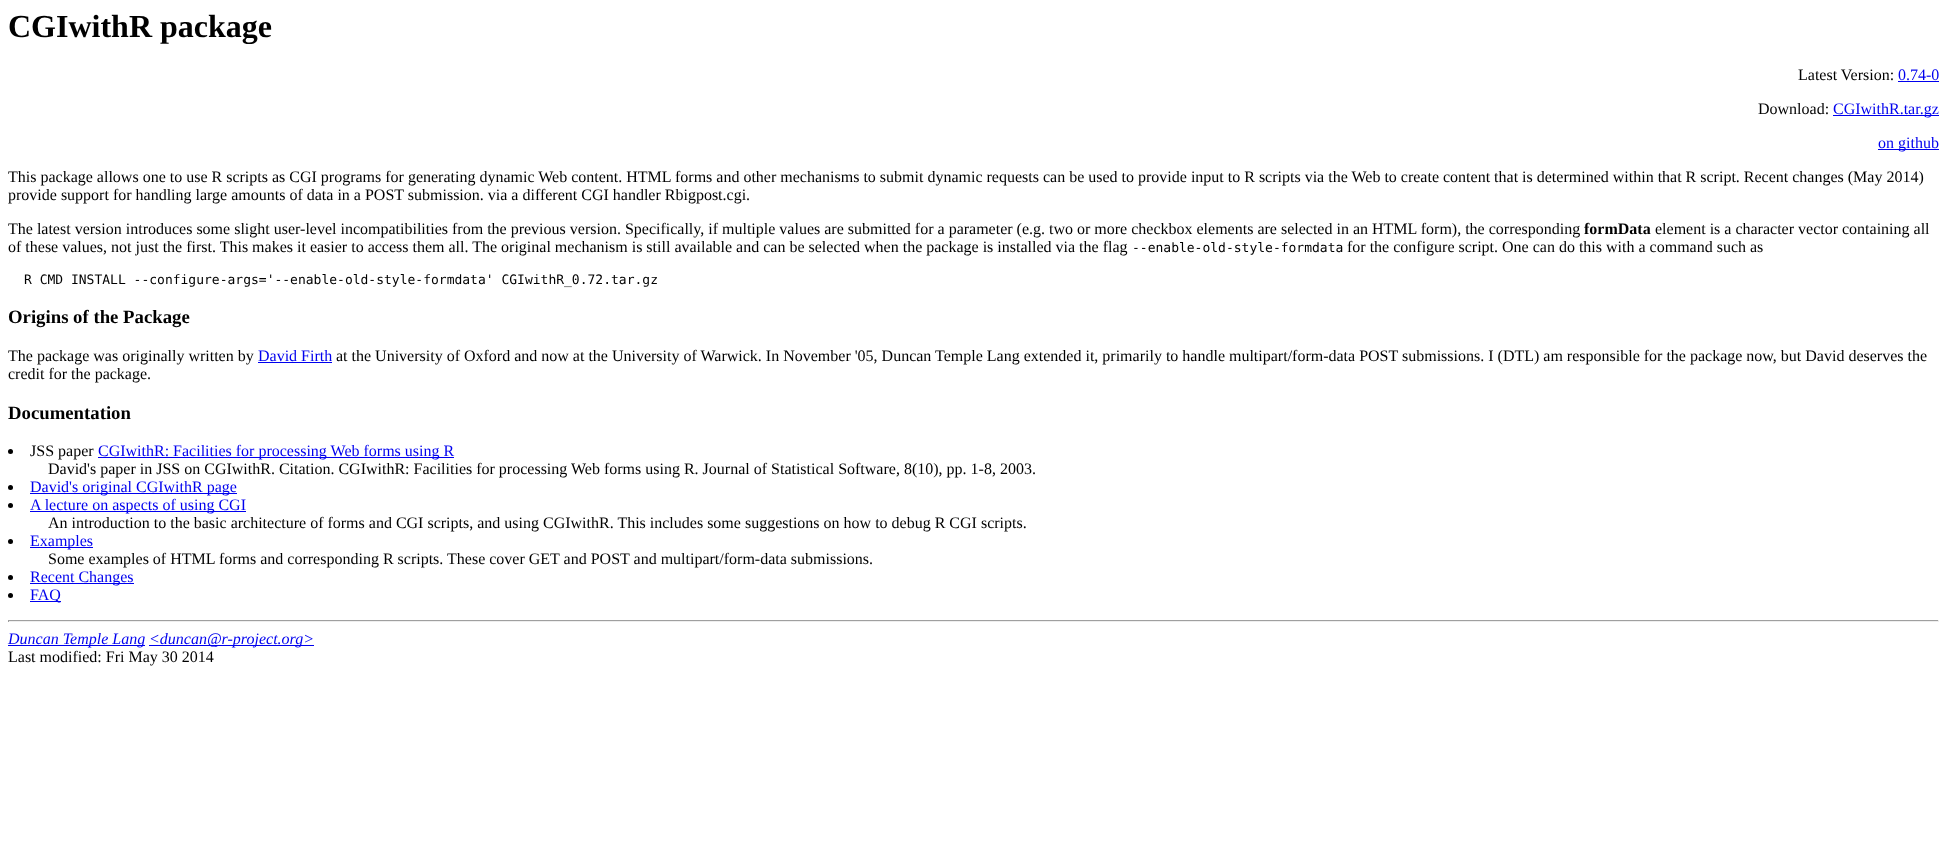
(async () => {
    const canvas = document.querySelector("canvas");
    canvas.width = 1947;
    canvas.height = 866;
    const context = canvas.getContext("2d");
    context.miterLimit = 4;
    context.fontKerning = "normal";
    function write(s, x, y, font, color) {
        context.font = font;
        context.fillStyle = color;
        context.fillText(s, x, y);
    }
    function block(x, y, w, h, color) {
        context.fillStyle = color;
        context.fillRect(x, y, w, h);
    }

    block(0, 0, 1947, 866, "rgb(255, 255, 255)");
    write("CGIwithR package", 8, 37, "bold 32px Liberation Serif", "rgb(0, 0, 0)");
    write("Latest Version:", 1798, 80, "16px Liberation Serif", "rgb(0, 0, 0)");
    write("0.74-0", 1898, 80, "16px Liberation Serif", "rgb(0, 0, 238)");
    block(1898, 81, 41, 1, "rgb(0, 0, 238)");
    write("Download:", 1758, 114, "16px Liberation Serif", "rgb(0, 0, 0)");
    block(1833, 115, 106, 1, "rgb(0, 0, 238)");
    write("CGIwithR.tar.gz", 1833, 114, "16px Liberation Serif", "rgb(0, 0, 238)");
    block(1878, 149, 61, 1, "rgb(0, 0, 238)");
    write("on github", 1878, 148, "16px Liberation Serif", "rgb(0, 0, 238)");
    write("This package allows one to use R scripts as CGI programs for generating dynamic Web content. HTML forms and other mechanisms to submit dynamic requests can be used to provide input to R scripts via the Web to create content that is determined within that R script. Recent changes (May 2014)", 8, 182, "16px Liberation Serif", "rgb(0, 0, 0)");
    write("provide support for handling large amounts of data in a POST submission. via a different CGI handler Rbigpost.cgi.", 8, 200, "16px Liberation Serif", "rgb(0, 0, 0)");
    write("The latest version introduces some slight user-level incompatibilities from the previous version. Specifically, if multiple values are submitted for a parameter (e.g. two or more checkbox elements are selected in an HTML form), the corresponding", 8, 234, "16px Liberation Serif", "rgb(0, 0, 0)");
    write("formData", 1584, 234, "bold 16px Liberation Serif", "rgb(0, 0, 0)");
    write("element is a character vector containing all", 1655, 234, "16px Liberation Serif", "rgb(0, 0, 0)");
    write("of these values, not just the first. This makes it easier to access them all. The original mechanism is still available and can be selected when the package is installed via the flag", 8, 252, "16px Liberation Serif", "rgb(0, 0, 0)");
    write("--enable-old-style-formdata", 1132, 252, "13px DejaVu Sans Mono", "rgb(0, 0, 0)");
    write("for the configure script. One can do this with a command such as", 1347, 252, "16px Liberation Serif", "rgb(0, 0, 0)");
    write("R CMD INSTALL --configure-args='--enable-old-style-formdata' CGIwithR_0.72.tar.gz", 24, 284, "13px DejaVu Sans Mono", "rgb(0, 0, 0)");
    write("Origins of the Package", 8, 323, "bold 18.75px Liberation Serif", "rgb(0, 0, 0)");
    write("The package was originally written by", 8, 361, "16px Liberation Serif", "rgb(0, 0, 0)");
    write("David Firth", 258, 361, "16px Liberation Serif", "rgb(0, 0, 238)");
    block(258, 362, 74, 1, "rgb(0, 0, 238)");
    write("at the University of Oxford and now at the University of Warwick. In November '05, Duncan Temple Lang extended it, primarily to handle multipart/form-data POST submissions. I (DTL) am responsible for the package now, but David deserves the", 336, 361, "16px Liberation Serif", "rgb(0, 0, 0)");
    write("credit for the package.", 8, 379, "16px Liberation Serif", "rgb(0, 0, 0)");
    write("Documentation", 8, 419, "bold 18.75px Liberation Serif", "rgb(0, 0, 0)");
    context.beginPath();
    context.arc(10.5, 451.5, 2.5, 0, Math.PI * 2);
    context.fill();
    write("JSS paper", 30, 456, "16px Liberation Serif", "rgb(0, 0, 0)");
    block(98, 457, 356, 1, "rgb(0, 0, 238)");
    write("CGIwithR: Facilities for processing Web forms using R", 98, 456, "16px Liberation Serif", "rgb(0, 0, 238)");
    write("David's paper in JSS on CGIwithR. Citation. CGIwithR: Facilities for processing Web forms using R. Journal of Statistical Software, 8(10), pp. 1-8, 2003.", 48, 474, "16px Liberation Serif", "rgb(0, 0, 0)");
    context.beginPath();
    context.arc(10.5, 487.5, 2.5, 0, Math.PI * 2);
    context.fill();
    block(30, 493, 207, 1, "rgb(0, 0, 238)");
    write("David's original CGIwithR page", 30, 492, "16px Liberation Serif", "rgb(0, 0, 238)");
    context.fillStyle = "rgb(0, 0, 0)";
    context.beginPath();
    context.arc(10.5, 505.5, 2.5, 0, Math.PI * 2);
    context.fill();
    block(30, 511, 216, 1, "rgb(0, 0, 238)");
    write("A lecture on aspects of using CGI", 30, 510, "16px Liberation Serif", "rgb(0, 0, 238)");
    write("An introduction to the basic architecture of forms and CGI scripts, and using CGIwithR. This includes some suggestions on how to debug R CGI scripts.", 48, 528, "16px Liberation Serif", "rgb(0, 0, 0)");
    context.beginPath();
    context.arc(10.5, 541.5, 2.5, 0, Math.PI * 2);
    context.fill();
    block(30, 547, 63, 1, "rgb(0, 0, 238)");
    write("Examples", 30, 546, "16px Liberation Serif", "rgb(0, 0, 238)");
    write("Some examples of HTML forms and corresponding R scripts. These cover GET and POST and multipart/form-data submissions.", 48, 564, "16px Liberation Serif", "rgb(0, 0, 0)");
    context.beginPath();
    context.arc(10.5, 577.5, 2.5, 0, Math.PI * 2);
    context.fill();
    block(30, 583, 104, 1, "rgb(0, 0, 238)");
    write("Recent Changes", 30, 582, "16px Liberation Serif", "rgb(0, 0, 238)");
    context.fillStyle = "rgb(0, 0, 0)";
    context.beginPath();
    context.arc(10.5, 595.5, 2.5, 0, Math.PI * 2);
    context.fill();
    block(30, 601, 31, 1, "rgb(0, 0, 238)");
    write("FAQ", 30, 600, "16px Liberation Serif", "rgb(0, 0, 238)");
    block(8, 620, 1931, 1, "rgb(159, 159, 159)");
    block(1938, 620, 1, 2, "rgb(238, 238, 238)");
    block(8, 621, 1931, 1, "rgb(238, 238, 238)");
    block(8, 620, 1, 2, "rgb(159, 159, 159)");
    block(8, 645, 137, 1, "rgb(0, 0, 238)");
    write("Duncan Temple Lang", 8, 644, "italic 16px Liberation Serif", "rgb(0, 0, 238)");
    block(149, 645, 165, 1, "rgb(0, 0, 238)");
    write("<duncan@r-project.org>", 149, 644, "italic 16px Liberation Serif", "rgb(0, 0, 238)");
    write("Last modified: Fri May 30 2014", 8, 662, "16px Liberation Serif", "rgb(0, 0, 0)");
})();
